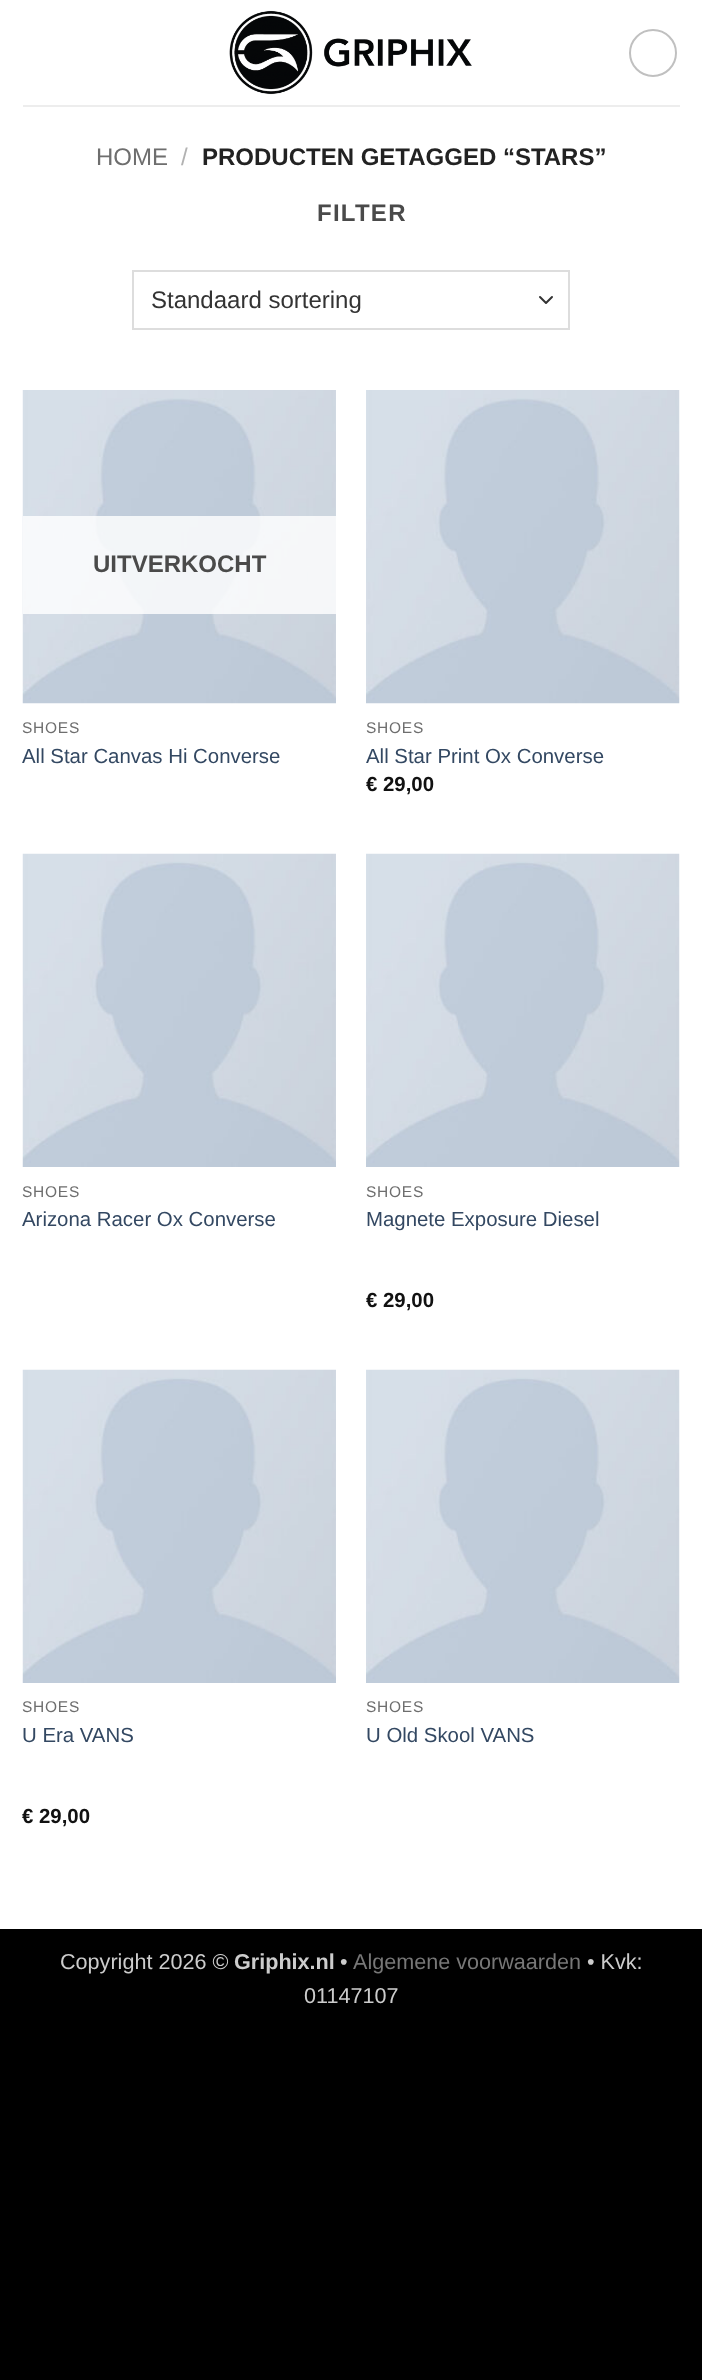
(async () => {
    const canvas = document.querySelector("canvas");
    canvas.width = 702;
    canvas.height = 2380;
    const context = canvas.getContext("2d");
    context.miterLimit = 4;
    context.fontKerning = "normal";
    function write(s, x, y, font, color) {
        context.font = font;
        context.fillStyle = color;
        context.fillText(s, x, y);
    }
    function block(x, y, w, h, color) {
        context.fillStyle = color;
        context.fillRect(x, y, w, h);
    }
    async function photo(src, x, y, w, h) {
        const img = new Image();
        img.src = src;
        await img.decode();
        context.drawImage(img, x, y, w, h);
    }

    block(0, 0, 702, 2380, "rgb(0, 0, 0)");
    block(0, 0, 702, 1929, "rgb(255, 255, 255)");
    await photo("media/1.png", 229, 10, 243, 85);
    context.beginPath();
    context.arc(653, 53, 23, 0, Math.PI * 2);
    context.strokeStyle = "rgb(192, 192, 192)";
    context.lineWidth = 2;
    context.stroke();
    block(23, 105, 657, 2, "rgb(237, 237, 237)");
    write("HOME", 96, 165, "24px Liberation Sans", "rgb(110, 110, 110)");
    write("/", 181, 165, "24px Liberation Sans", "rgb(178, 178, 178)");
    write("PRODUCTEN GETAGGED “STARS”", 202, 165, "bold 24px Liberation Sans", "rgb(34, 34, 34)");
    context.letterSpacing = "1.25px";
    write("FILTER", 317, 221, "bold 24px Liberation Sans", "rgb(74, 74, 74)");
    context.beginPath();
    context.moveTo(540, 297);
    context.lineTo(546, 303);
    context.lineTo(552, 297);
    context.strokeStyle = "rgb(51, 51, 51)";
    context.lineCap = "round";
    context.lineJoin = "round";
    context.stroke();
    context.strokeStyle = "rgb(221, 221, 221)";
    context.lineJoin = "miter";
    context.strokeRect(133, 271, 436, 58);
    context.letterSpacing = "0px";
    write("Standaard sortering", 151, 308, "24px Liberation Sans", "rgb(51, 51, 51)");
    await photo("media/2.png", 22, 390, 314, 314);
    block(23, 516, 313, 98, "rgba(255, 255, 255, 0.81)");
    write("UITVERKOCHT", 93, 572, "bold 24px Liberation Sans", "rgb(74, 74, 74)");
    context.letterSpacing = "0.75px";
    write("SHOES", 22, 733, "15.5px Liberation Sans", "rgb(110, 110, 110)");
    context.letterSpacing = "0px";
    write("All Star Canvas Hi Converse", 22, 763, "20.4px Liberation Sans", "rgb(51, 72, 98)");
    await photo("media/3.png", 366, 390, 314, 314);
    context.letterSpacing = "0.75px";
    write("SHOES", 366, 733, "15.5px Liberation Sans", "rgb(110, 110, 110)");
    context.letterSpacing = "0px";
    write("All Star Print Ox Converse", 366, 763, "20.4px Liberation Sans", "rgb(51, 72, 98)");
    write("€ 29,00", 366, 791, "bold 20.4px Liberation Sans", "rgb(17, 17, 17)");
    await photo("media/4.png", 22, 853, 314, 314);
    context.letterSpacing = "0.75px";
    write("SHOES", 22, 1197, "15.5px Liberation Sans", "rgb(110, 110, 110)");
    context.letterSpacing = "0px";
    write("Arizona Racer Ox Converse", 22, 1226, "20.4px Liberation Sans", "rgb(51, 72, 98)");
    await photo("media/5.png", 366, 853, 314, 314);
    context.letterSpacing = "0.75px";
    write("SHOES", 366, 1197, "15.5px Liberation Sans", "rgb(110, 110, 110)");
    context.letterSpacing = "0px";
    write("Magnete Exposure Diesel", 366, 1226, "20.4px Liberation Sans", "rgb(51, 72, 98)");
    write("€ 29,00", 366, 1307, "bold 20.4px Liberation Sans", "rgb(17, 17, 17)");
    await photo("media/4.png", 22, 1369, 314, 314);
    context.letterSpacing = "0.75px";
    write("SHOES", 22, 1712, "15.5px Liberation Sans", "rgb(110, 110, 110)");
    context.letterSpacing = "0px";
    write("U Era VANS", 22, 1742, "20.4px Liberation Sans", "rgb(51, 72, 98)");
    write("€ 29,00", 22, 1823, "bold 20.4px Liberation Sans", "rgb(17, 17, 17)");
    await photo("media/5.png", 366, 1369, 314, 314);
    context.letterSpacing = "0.75px";
    write("SHOES", 366, 1712, "15.5px Liberation Sans", "rgb(110, 110, 110)");
    context.letterSpacing = "0px";
    write("U Old Skool VANS", 366, 1742, "20.4px Liberation Sans", "rgb(51, 72, 98)");
    write("Copyright 2026 ©", 60, 1969, "21.6px Liberation Sans", "rgb(204, 204, 204)");
    write("Griphix.nl", 234, 1969, "bold 21.6px Liberation Sans", "rgb(204, 204, 204)");
    write("•", 340, 1969, "21.6px Liberation Sans", "rgb(204, 204, 204)");
    write("Algemene voorwaarden", 353, 1969, "21.6px Liberation Sans", "rgb(119, 119, 119)");
    write("• Kvk:", 587, 1969, "21.6px Liberation Sans", "rgb(204, 204, 204)");
    write("01147107", 304, 2003, "21.6px Liberation Sans", "rgb(204, 204, 204)");
})();
